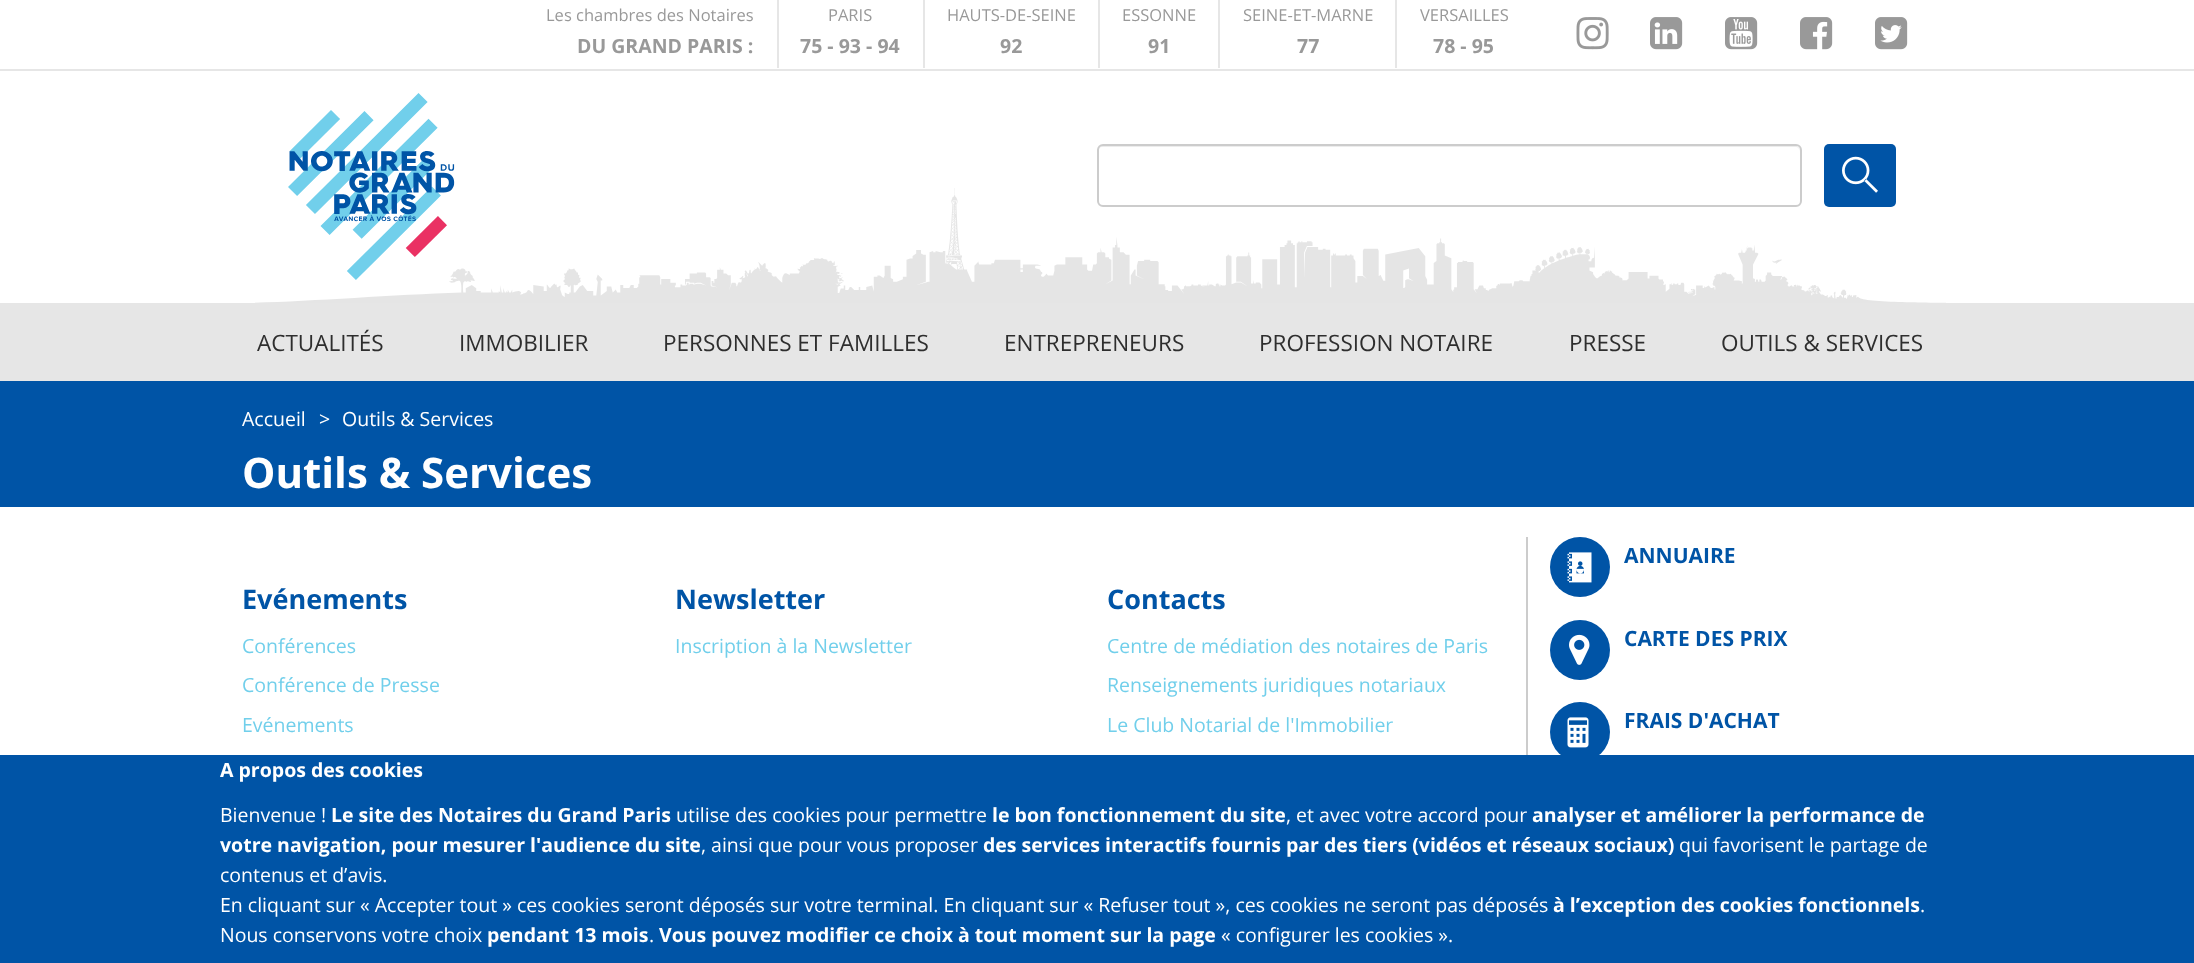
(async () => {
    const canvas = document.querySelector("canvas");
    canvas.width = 2194;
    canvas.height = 963;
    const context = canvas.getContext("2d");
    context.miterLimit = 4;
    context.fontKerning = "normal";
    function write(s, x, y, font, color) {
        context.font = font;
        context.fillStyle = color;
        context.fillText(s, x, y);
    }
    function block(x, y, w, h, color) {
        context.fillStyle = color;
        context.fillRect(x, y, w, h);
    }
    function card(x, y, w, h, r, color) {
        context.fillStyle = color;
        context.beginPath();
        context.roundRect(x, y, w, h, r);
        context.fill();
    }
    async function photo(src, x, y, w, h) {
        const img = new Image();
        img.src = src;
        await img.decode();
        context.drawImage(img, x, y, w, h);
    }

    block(0, 0, 2194, 963, "rgb(255, 255, 255)");
    block(0, 69, 2194, 2, "rgb(230, 230, 230)");
    write("Les chambres des Notaires", 546, 21, "16.5px Open Sans", "rgb(153, 153, 153)");
    write("DU GRAND PARIS :", 577, 53, "bold 19.5px Open Sans", "rgb(153, 153, 153)");
    block(777, 0, 2, 68, "rgb(230, 230, 230)");
    write("PARIS", 828, 21, "16.5px Open Sans", "rgb(153, 153, 153)");
    write("75 - 93 - 94", 800, 53, "bold 19.5px Open Sans", "rgb(153, 153, 153)");
    block(923, 0, 2, 68, "rgb(230, 230, 230)");
    write("HAUTS-DE-SEINE", 947, 21, "16.5px Open Sans", "rgb(153, 153, 153)");
    write("92", 1000, 53, "bold 19.5px Open Sans", "rgb(153, 153, 153)");
    block(1098, 0, 2, 68, "rgb(230, 230, 230)");
    write("ESSONNE", 1122, 21, "16.5px Open Sans", "rgb(153, 153, 153)");
    write("91", 1148, 53, "bold 19.5px Open Sans", "rgb(153, 153, 153)");
    block(1218, 0, 2, 68, "rgb(230, 230, 230)");
    write("SEINE-ET-MARNE", 1243, 21, "16.5px Open Sans", "rgb(153, 153, 153)");
    write("77", 1297, 53, "bold 19.5px Open Sans", "rgb(153, 153, 153)");
    block(1395, 0, 2, 68, "rgb(230, 230, 230)");
    write("VERSAILLES", 1420, 21, "16.5px Open Sans", "rgb(153, 153, 153)");
    write("78 - 95", 1433, 53, "bold 19.5px Open Sans", "rgb(153, 153, 153)");
    await photo("media/1.png", 1576, 17, 33, 33);
    await photo("media/2.png", 1650, 17, 33, 33);
    await photo("media/3.png", 1725, 17, 33, 33);
    await photo("media/4.png", 1800, 17, 33, 33);
    await photo("media/5.png", 1875, 17, 33, 33);
    context.fillStyle = "rgb(236, 236, 236)";
    context.beginPath();
    context.moveTo(1102, 147);
    context.lineTo(1796, 147);
    context.bezierCurveTo(1798, 147, 1800, 149, 1800, 152);
    context.lineTo(1800, 151);
    context.bezierCurveTo(1800, 148, 1798, 146, 1795, 146);
    context.lineTo(1103, 146);
    context.bezierCurveTo(1100, 146, 1098, 148, 1098, 151);
    context.lineTo(1098, 152);
    context.bezierCurveTo(1098, 149, 1100, 147, 1102, 147);
    context.closePath();
    context.fill();
    context.beginPath();
    context.roundRect(1098, 145, 703, 61, 5);
    context.strokeStyle = "rgb(204, 204, 204)";
    context.lineWidth = 2;
    context.stroke();
    card(1824, 144, 72, 63, 5, "rgb(0, 84, 166)");
    await photo("media/7.png", 1842, 156, 36, 37);
    await photo("media/8.png", 255, 188, 1691, 115);
    await photo("media/6.png", 288, 93, 167, 187);
    block(0, 303, 2194, 78, "rgb(230, 230, 230)");
    write("ACTUALITÉS", 257, 351, "22.5px Open Sans", "rgb(46, 46, 46)");
    write("IMMOBILIER", 459, 351, "22.5px Open Sans", "rgb(46, 46, 46)");
    write("PERSONNES ET FAMILLES", 663, 351, "22.5px Open Sans", "rgb(46, 46, 46)");
    write("ENTREPRENEURS", 1004, 351, "22.5px Open Sans", "rgb(46, 46, 46)");
    write("PROFESSION NOTAIRE", 1259, 351, "22.5px Open Sans", "rgb(46, 46, 46)");
    write("PRESSE", 1569, 351, "22.5px Open Sans", "rgb(46, 46, 46)");
    write("OUTILS & SERVICES", 1721, 351, "22.5px Open Sans", "rgb(46, 46, 46)");
    block(0, 381, 2194, 126, "rgb(0, 84, 166)");
    write("Accueil", 242, 426, "19.5px Open Sans", "rgb(255, 255, 255)");
    write(">", 319, 426, "19.5px Open Sans", "rgb(255, 255, 255)");
    write("Outils & Services", 342, 426, "19.5px Open Sans", "rgb(255, 255, 255)");
    write("Outils & Services", 242, 488, "bold 42px Open Sans", "rgb(255, 255, 255)");
    write("Evénements", 242, 609, "bold 27px Open Sans", "rgb(0, 84, 166)");
    write("Conférences", 242, 653, "19.5px Open Sans", "rgb(113, 207, 235)");
    write("Conférence de Presse", 242, 692, "19.5px Open Sans", "rgb(113, 207, 235)");
    write("Evénements", 242, 732, "19.5px Open Sans", "rgb(113, 207, 235)");
    write("Newsletter", 675, 609, "bold 27px Open Sans", "rgb(0, 84, 166)");
    write("Inscription à la Newsletter", 675, 653, "19.5px Open Sans", "rgb(113, 207, 235)");
    write("Contacts", 1107, 609, "bold 27px Open Sans", "rgb(0, 84, 166)");
    write("Centre de médiation des notaires de Paris", 1107, 653, "19.5px Open Sans", "rgb(113, 207, 235)");
    write("Renseignements juridiques notariaux", 1107, 692, "19.5px Open Sans", "rgb(113, 207, 235)");
    write("Le Club Notarial de l'Immobilier", 1107, 732, "19.5px Open Sans", "rgb(113, 207, 235)");
    block(1526, 537, 2, 218, "rgb(204, 204, 204)");
    context.fillStyle = "rgb(0, 84, 166)";
    context.beginPath();
    context.arc(1580, 567, 30, 0, Math.PI * 2);
    context.fill();
    await photo("media/9.png", 1567, 552, 25, 31);
    write("ANNUAIRE", 1624, 563, "bold 21px Open Sans", "rgb(0, 84, 166)");
    context.beginPath();
    context.arc(1580, 650, 30, 0, Math.PI * 2);
    context.fill();
    await photo("media/10.png", 1569, 634, 21, 31);
    write("CARTE DES PRIX", 1624, 646, "bold 21px Open Sans", "rgb(0, 84, 166)");
    context.beginPath();
    context.arc(1580, 732, 30, 0, Math.PI * 2);
    context.fill();
    await photo("media/11.png", 1567, 717, 22, 31);
    write("FRAIS D'ACHAT", 1624, 728, "bold 21px Open Sans", "rgb(0, 84, 166)");
    block(0, 755, 2194, 208, "rgb(0, 84, 166)");
    write("A propos des cookies", 220, 777, "bold 19.5px Open Sans", "rgb(255, 255, 255)");
    write("Bienvenue !", 220, 822, "19.5px Open Sans", "rgb(255, 255, 255)");
    write("Le site des Notaires du Grand Paris", 331, 822, "bold 19.5px Open Sans", "rgb(255, 255, 255)");
    write("utilise des cookies pour permettre", 676, 822, "19.5px Open Sans", "rgb(255, 255, 255)");
    write("le bon fonctionnement du site", 992, 822, "bold 19.5px Open Sans", "rgb(255, 255, 255)");
    write(", et avec votre accord pour", 1286, 822, "19.5px Open Sans", "rgb(255, 255, 255)");
    write("analyser et améliorer la performance de", 1532, 822, "bold 19.5px Open Sans", "rgb(255, 255, 255)");
    write("votre navigation, pour mesurer l'audience du site", 220, 852, "bold 19.5px Open Sans", "rgb(255, 255, 255)");
    write(", ainsi que pour vous proposer", 701, 852, "19.5px Open Sans", "rgb(255, 255, 255)");
    write("des services interactifs fournis par des tiers (vidéos et réseaux sociaux)", 983, 852, "bold 19.5px Open Sans", "rgb(255, 255, 255)");
    write("qui favorisent le partage de", 1679, 852, "19.5px Open Sans", "rgb(255, 255, 255)");
    write("contenus et d’avis.", 220, 882, "19.5px Open Sans", "rgb(255, 255, 255)");
    write("En cliquant sur « Accepter tout » ces cookies seront déposés sur votre terminal. En cliquant sur « Refuser tout », ces cookies ne seront pas déposés", 220, 912, "19.5px Open Sans", "rgb(255, 255, 255)");
    write("à l’exception des cookies fonctionnels", 1553, 912, "bold 19.5px Open Sans", "rgb(255, 255, 255)");
    write(".", 1920, 912, "19.5px Open Sans", "rgb(255, 255, 255)");
    write("Nous conservons votre choix", 220, 942, "19.5px Open Sans", "rgb(255, 255, 255)");
    write("pendant 13 mois", 487, 942, "bold 19.5px Open Sans", "rgb(255, 255, 255)");
    write(".", 649, 942, "19.5px Open Sans", "rgb(255, 255, 255)");
    write("Vous pouvez modifier ce choix à tout moment sur la page", 659, 942, "bold 19.5px Open Sans", "rgb(255, 255, 255)");
    write("« configurer les cookies ».", 1221, 942, "19.5px Open Sans", "rgb(255, 255, 255)");
})();
